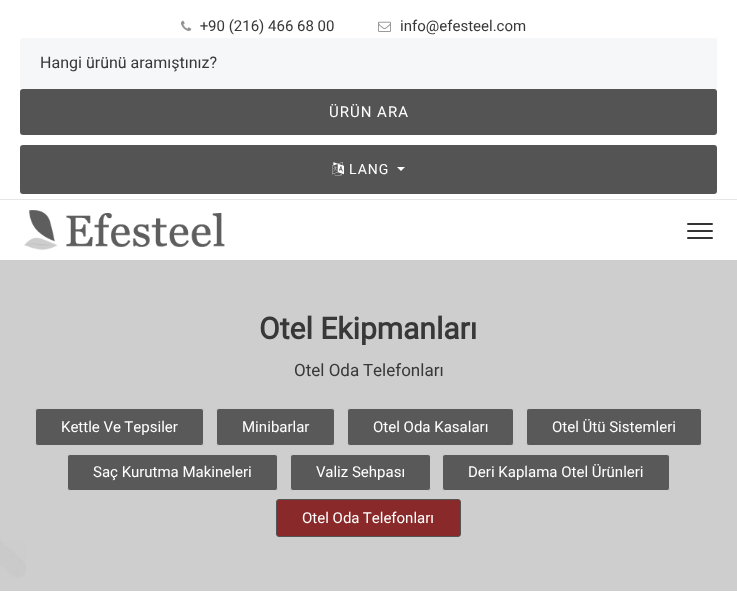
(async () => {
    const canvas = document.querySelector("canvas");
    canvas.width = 737;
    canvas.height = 603;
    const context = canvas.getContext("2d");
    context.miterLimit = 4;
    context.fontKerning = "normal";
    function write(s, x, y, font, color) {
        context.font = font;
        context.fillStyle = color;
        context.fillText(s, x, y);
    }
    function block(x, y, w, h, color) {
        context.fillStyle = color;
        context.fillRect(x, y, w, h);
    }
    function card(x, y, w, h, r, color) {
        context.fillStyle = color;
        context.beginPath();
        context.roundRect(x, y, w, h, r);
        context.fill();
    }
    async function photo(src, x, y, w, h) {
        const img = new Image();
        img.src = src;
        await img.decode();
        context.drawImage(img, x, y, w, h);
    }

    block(0, 0, 737, 603, "rgb(255, 255, 255)");
    block(0, 260, 737, 331, "rgb(206, 206, 206)");
    block(0, 199, 737, 1, "rgb(230, 230, 230)");
    await photo("media/1.png", 181, 20, 11, 11);
    write("+90 (216) 466 68 00", 200, 31, "15px Heebo", "rgb(56, 56, 56)");
    await photo("media/2.png", 378, 21, 13, 11);
    write("info@efesteel.com", 400, 31, "15px Heebo", "rgb(56, 56, 56)");
    context.fillStyle = "rgb(246, 247, 248)";
    context.beginPath();
    context.roundRect(20, 38, 697, 51, [3, 0, 0, 3]);
    context.fill();
    write("Hangi ürünü aramıştınız?", 40, 68, "16px Heebo", "rgb(56, 56, 56)");
    context.fillStyle = "rgb(84, 84, 84)";
    context.beginPath();
    context.roundRect(21, 90, 695, 44, 2);
    context.fill();
    context.strokeStyle = "rgb(84, 84, 84)";
    context.lineWidth = 2;
    context.stroke();
    context.letterSpacing = "1px";
    write("ÜRÜN ARA", 329, 117, "15px Heebo", "rgb(255, 255, 255)");
    context.fillStyle = "rgb(84, 84, 84)";
    context.beginPath();
    context.roundRect(21, 146, 695, 47, 2);
    context.fill();
    context.stroke();
    await photo("media/3.png", 332, 162, 12, 14);
    write("LANG", 349, 174, "14px Heebo", "rgb(255, 255, 255)");
    context.beginPath();
    context.moveTo(397, 167);
    context.lineTo(405, 167);
    context.lineTo(401, 171);
    context.closePath();
    context.fill();
    await photo("media/4.png", 24, 210, 201, 40);
    card(687, 223, 26, 2, 1, "rgb(52, 52, 52)");
    card(687, 230, 26, 2, 1, "rgb(52, 52, 52)");
    card(687, 237, 26, 2, 1, "rgb(52, 52, 52)");
    await photo("media/5.png", 0, 540, 26, 38);
    context.letterSpacing = "0px";
    write("Otel Ekipmanları", 259, 339, "bold 30px Heebo", "rgb(56, 56, 56)");
    write("Otel Oda Telefonları", 294, 376, "17px Heebo", "rgb(56, 56, 56)");
    context.fillStyle = "rgb(89, 89, 89)";
    context.beginPath();
    context.roundRect(35.5, 408.5, 168, 37, 2.5);
    context.fill();
    context.strokeStyle = "rgb(205, 205, 205)";
    context.lineWidth = 1;
    context.stroke();
    write("Kettle Ve Tepsiler", 61, 432, "15px Heebo", "rgb(255, 255, 255)");
    context.fillStyle = "rgb(89, 89, 89)";
    context.beginPath();
    context.roundRect(216.5, 408.5, 118, 37, 2.5);
    context.fill();
    context.stroke();
    write("Minibarlar", 242, 432, "15px Heebo", "rgb(255, 255, 255)");
    context.fillStyle = "rgb(89, 89, 89)";
    context.beginPath();
    context.roundRect(347.5, 408.5, 166, 37, 2.5);
    context.fill();
    context.stroke();
    write("Otel Oda Kasaları", 373, 432, "15px Heebo", "rgb(255, 255, 255)");
    context.fillStyle = "rgb(89, 89, 89)";
    context.beginPath();
    context.roundRect(526.5, 408.5, 175, 37, 2.5);
    context.fill();
    context.stroke();
    write("Otel Ütü Sistemleri", 552, 432, "15px Heebo", "rgb(255, 255, 255)");
    context.fillStyle = "rgb(89, 89, 89)";
    context.beginPath();
    context.roundRect(67.5, 454.5, 210, 36, 2.5);
    context.fill();
    context.stroke();
    write("Saç Kurutma Makineleri", 93, 477, "15px Heebo", "rgb(255, 255, 255)");
    context.fillStyle = "rgb(89, 89, 89)";
    context.beginPath();
    context.roundRect(290.5, 454.5, 140, 36, 2.5);
    context.fill();
    context.stroke();
    write("Valiz Sehpası", 316, 477, "15px Heebo", "rgb(255, 255, 255)");
    context.fillStyle = "rgb(89, 89, 89)";
    context.beginPath();
    context.roundRect(442.5, 454.5, 227, 36, 2.5);
    context.fill();
    context.stroke();
    write("Deri Kaplama Otel Ürünleri", 468, 477, "15px Heebo", "rgb(255, 255, 255)");
    context.fillStyle = "rgb(138, 41, 41)";
    context.beginPath();
    context.roundRect(276.5, 499.5, 184, 37, 2.5);
    context.fill();
    context.strokeStyle = "rgb(84, 84, 84)";
    context.stroke();
    write("Otel Oda Telefonları", 302, 523, "15px Heebo", "rgb(255, 255, 255)");
})();
